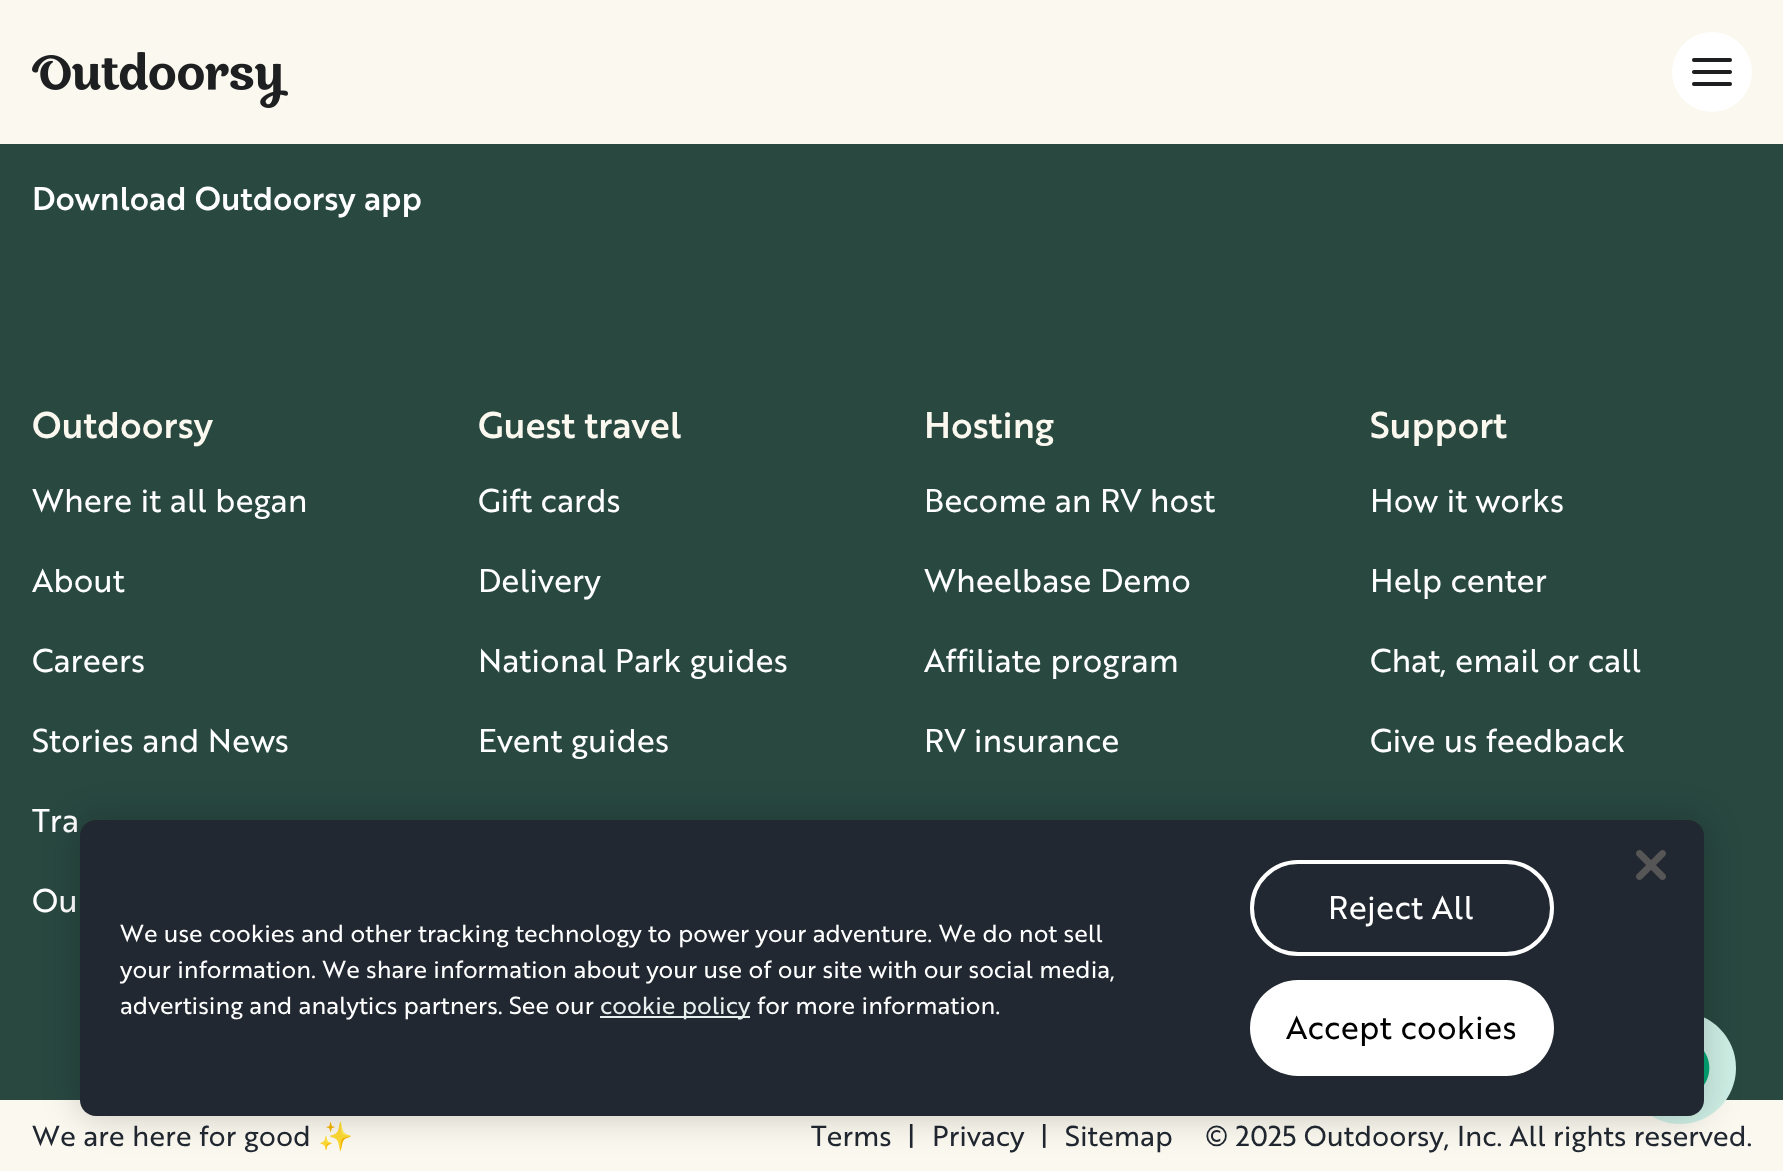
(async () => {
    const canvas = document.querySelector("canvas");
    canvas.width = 1783;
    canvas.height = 1171;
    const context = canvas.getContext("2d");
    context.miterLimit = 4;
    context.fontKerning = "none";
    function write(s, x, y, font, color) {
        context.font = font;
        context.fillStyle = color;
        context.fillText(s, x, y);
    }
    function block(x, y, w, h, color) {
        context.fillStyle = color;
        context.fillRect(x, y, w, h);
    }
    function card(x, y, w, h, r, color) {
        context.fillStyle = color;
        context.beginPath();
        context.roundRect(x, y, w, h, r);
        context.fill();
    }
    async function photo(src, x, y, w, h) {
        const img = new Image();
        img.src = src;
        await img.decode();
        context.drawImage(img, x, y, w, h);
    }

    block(0, 0, 1783, 1171, "rgb(40, 72, 64)");
    block(0, 0, 1783, 144, "rgb(251, 248, 239)");
    await photo("media/1.png", 32, 52, 256, 56);
    context.fillStyle = "rgb(255, 255, 255)";
    context.beginPath();
    context.arc(1712, 72, 40, 0, Math.PI * 2);
    context.fill();
    await photo("media/2.png", 1692, 58, 40, 28);
    write("Download Outdoorsy app", 32, 210, "500 32px 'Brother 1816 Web'", "rgb(255, 255, 255)");
    write("Outdoorsy", 32, 438, "500 36px 'Brother 1816 Web'", "rgb(251, 248, 239)");
    write("Where it all began", 32, 512, "32px 'Brother 1816 Web'", "rgb(255, 255, 255)");
    write("About", 32, 592, "32px 'Brother 1816 Web'", "rgb(255, 255, 255)");
    write("Careers", 32, 672, "32px 'Brother 1816 Web'", "rgb(255, 255, 255)");
    write("Stories and News", 32, 752, "32px 'Brother 1816 Web'", "rgb(255, 255, 255)");
    write("Tra", 32, 832, "32px 'Brother 1816 Web'", "rgb(255, 255, 255)");
    write("Ou", 32, 912, "32px 'Brother 1816 Web'", "rgb(255, 255, 255)");
    write("Guest travel", 478, 438, "500 36px 'Brother 1816 Web'", "rgb(251, 248, 239)");
    write("Gift cards", 478, 512, "32px 'Brother 1816 Web'", "rgb(255, 255, 255)");
    write("Delivery", 478, 592, "32px 'Brother 1816 Web'", "rgb(255, 255, 255)");
    write("National Park guides", 478, 672, "32px 'Brother 1816 Web'", "rgb(255, 255, 255)");
    write("Event guides", 478, 752, "32px 'Brother 1816 Web'", "rgb(255, 255, 255)");
    write("Hosting", 924, 438, "500 36px 'Brother 1816 Web'", "rgb(251, 248, 239)");
    write("Become an RV host", 924, 512, "32px 'Brother 1816 Web'", "rgb(255, 255, 255)");
    write("Wheelbase Demo", 924, 592, "32px 'Brother 1816 Web'", "rgb(255, 255, 255)");
    write("Affiliate program", 924, 672, "32px 'Brother 1816 Web'", "rgb(255, 255, 255)");
    write("RV insurance", 924, 752, "32px 'Brother 1816 Web'", "rgb(255, 255, 255)");
    write("Support", 1370, 438, "500 36px 'Brother 1816 Web'", "rgb(251, 248, 239)");
    write("How it works", 1370, 512, "32px 'Brother 1816 Web'", "rgb(255, 255, 255)");
    write("Help center", 1370, 592, "32px 'Brother 1816 Web'", "rgb(255, 255, 255)");
    write("Chat, email or call", 1370, 672, "32px 'Brother 1816 Web'", "rgb(255, 255, 255)");
    write("Give us feedback", 1370, 752, "32px 'Brother 1816 Web'", "rgb(255, 255, 255)");
    block(0, 1100, 1783, 71, "rgb(251, 248, 239)");
    write("We are here for good", 32, 1146, "28px 'Brother 1816 Web'", "rgb(33, 40, 49)");
    write("✨", 318, 1146, "28px Noto Color Emoji", "rgb(33, 40, 49)");
    write("Terms", 811, 1146, "28px 'Brother 1816 Web'", "rgb(33, 40, 49)");
    write("|", 907, 1146, "28px 'Brother 1816 Web'", "rgb(33, 40, 49)");
    write("Privacy", 932, 1146, "28px 'Brother 1816 Web'", "rgb(33, 40, 49)");
    write("|", 1040, 1146, "28px 'Brother 1816 Web'", "rgb(33, 40, 49)");
    write("Sitemap", 1065, 1146, "28px 'Brother 1816 Web'", "rgb(33, 40, 49)");
    write("© 2025 Outdoorsy, Inc. All rights reserved.", 1205, 1146, "28px 'Brother 1816 Web'", "rgb(33, 40, 49)");
    context.fillStyle = "rgb(205, 238, 228)";
    context.beginPath();
    context.arc(1680, 1068, 56, 0, Math.PI * 2);
    context.fill();
    await photo("media/3.png", 1704, 1051, 6, 34);
    context.fillStyle = "rgba(0, 0, 0, 0.2)";
    context.filter = "blur(18px)";
    context.beginPath();
    context.roundRect(80, 820, 1624, 296, 16);
    context.fill();
    context.filter = "none";
    card(80, 820, 1624, 296, 16, "rgb(33, 40, 49)");
    await photo("media/4.png", 1636, 850, 30, 30);
    write("We use cookies and other tracking technology to power your adventure. We do not sell", 120, 942, "24px 'Brother 1816 Web'", "rgb(255, 255, 255)");
    write("your information. We share information about your use of our site with our social media,", 120, 978, "24px 'Brother 1816 Web'", "rgb(255, 255, 255)");
    write("advertising and analytics partners. See our", 120, 1014, "24px 'Brother 1816 Web'", "rgb(255, 255, 255)");
    block(600, 1016, 150, 2, "rgb(230, 240, 239)");
    write("cookie policy", 600, 1014, "24px 'Brother 1816 Web'", "rgb(230, 240, 239)");
    write("for more information.", 757, 1014, "24px 'Brother 1816 Web'", "rgb(255, 255, 255)");
    context.beginPath();
    context.roundRect(1252, 862, 300, 92, 46);
    context.strokeStyle = "rgb(255, 255, 255)";
    context.lineWidth = 4;
    context.stroke();
    context.letterSpacing = "0.25px";
    write("Reject All", 1328, 919, "32px 'Brother 1816 Web'", "rgb(255, 255, 255)");
    card(1250, 980, 304, 96, 48, "rgb(255, 255, 255)");
    write("Accept cookies", 1286, 1039, "32px 'Brother 1816 Web'", "rgb(0, 0, 0)");
})();
